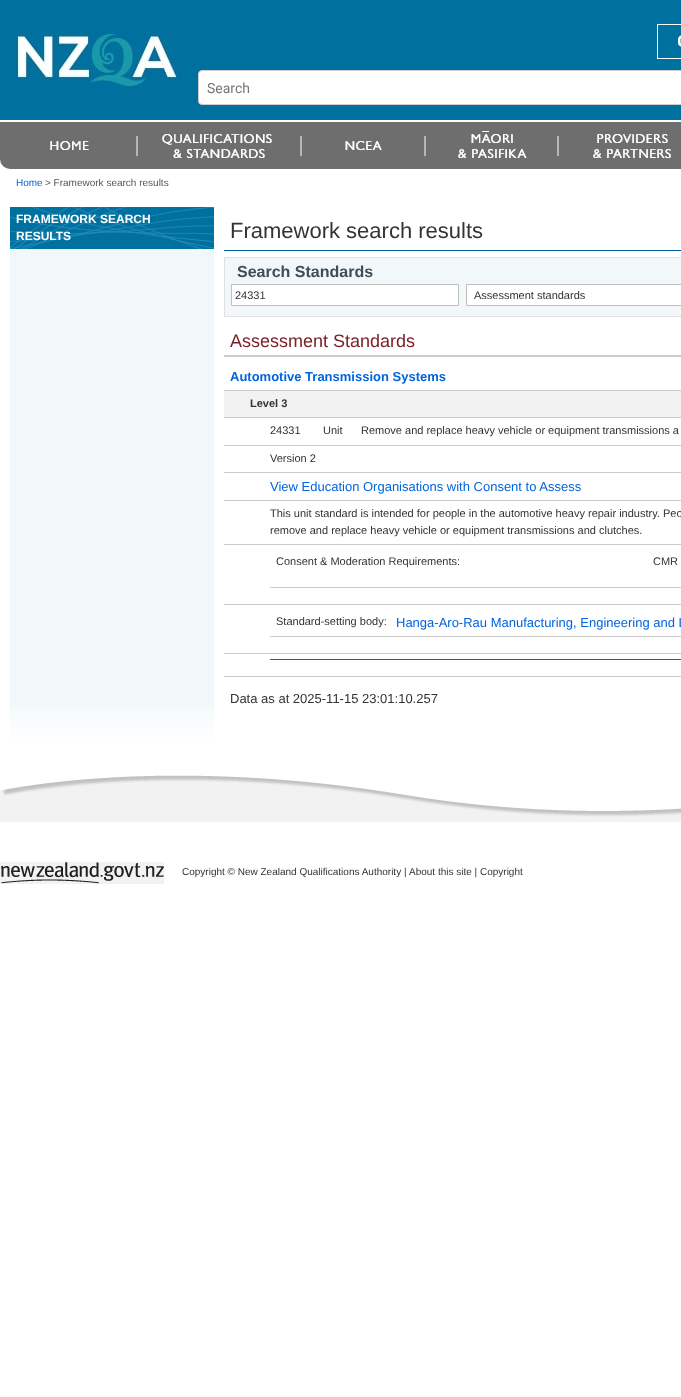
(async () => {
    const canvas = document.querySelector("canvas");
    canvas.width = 681;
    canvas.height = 1397;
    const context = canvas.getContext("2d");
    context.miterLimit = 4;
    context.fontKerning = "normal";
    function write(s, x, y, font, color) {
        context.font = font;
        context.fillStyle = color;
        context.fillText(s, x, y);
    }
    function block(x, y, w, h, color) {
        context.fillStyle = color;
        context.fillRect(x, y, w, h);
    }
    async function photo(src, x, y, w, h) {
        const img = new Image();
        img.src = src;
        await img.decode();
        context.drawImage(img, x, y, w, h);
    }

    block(0, 0, 681, 1397, "rgb(255, 255, 255)");
    await photo("media/1.png", 0, 0, 681, 120);
    await photo("media/2.png", 657, 24, 24, 35);
    context.beginPath();
    context.roundRect(198.5, 70.5, 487, 34, 3.5);
    context.fill();
    context.strokeStyle = "rgb(204, 204, 204)";
    context.stroke();
    write("Search", 207, 93, "14px Roboto", "rgb(117, 117, 117)");
    await photo("media/3.png", 0, 122, 681, 47);
    write("Home", 16, 186, "10px Liberation Sans", "rgb(0, 100, 221)");
    write("> Framework search results", 45, 186, "10px Liberation Sans", "rgb(82, 88, 88)");
    block(10, 249, 204, 458, "rgb(242, 248, 250)");
    await photo("media/4.png", 10, 207, 204, 42);
    write("FRAMEWORK SEARCH", 16, 223, "bold 12px Liberation Sans", "rgb(255, 255, 255)");
    write("RESULTS", 16, 240, "bold 12px Liberation Sans", "rgb(255, 255, 255)");
    await photo("media/5.png", 10, 707, 204, 45);
    block(224, 250, 457, 1, "rgb(0, 102, 153)");
    write("Framework search results", 230, 238, "22px Liberation Sans", "rgb(51, 51, 51)");
    context.fillStyle = "rgb(242, 248, 250)";
    context.beginPath();
    context.rect(224.5, 257.5, 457, 59);
    context.fill();
    context.strokeStyle = "rgb(224, 224, 224)";
    context.stroke();
    write("Search Standards", 237, 277, "bold 16px Liberation Sans", "rgb(64, 76, 88)");
    context.fillStyle = "rgb(255, 255, 255)";
    context.beginPath();
    context.rect(231.5, 284.5, 227, 21);
    context.fill();
    context.strokeStyle = "rgb(192, 192, 192)";
    context.stroke();
    write("24331", 235, 299, "11px Liberation Sans", "rgb(51, 51, 51)");
    context.fillStyle = "rgb(255, 255, 255)";
    context.beginPath();
    context.rect(466.5, 284.5, 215, 21);
    context.fill();
    context.stroke();
    write("Assessment standards", 474, 299, "11px Liberation Sans", "rgb(51, 51, 51)");
    block(224, 355, 457, 2, "rgb(204, 204, 204)");
    write("Assessment Standards", 230, 347, "18px Liberation Sans", "rgb(124, 33, 40)");
    block(224, 390, 457, 1, "rgb(204, 204, 204)");
    write("Automotive Transmission Systems", 230, 381, "bold 13px Liberation Sans", "rgb(0, 100, 221)");
    block(224, 391, 457, 26, "rgb(242, 242, 242)");
    block(224, 417, 457, 1, "rgb(204, 204, 204)");
    write("Level 3", 250, 407, "bold 11px Liberation Sans", "rgb(51, 51, 51)");
    write("24331", 270, 434, "11px Liberation Sans", "rgb(51, 51, 51)");
    write("Unit", 323, 434, "11px Liberation Sans", "rgb(51, 51, 51)");
    block(224, 445, 457, 1, "rgb(204, 204, 204)");
    write("Remove and replace heavy vehicle or equipment transmissions a", 361, 434, "11px Liberation Sans", "rgb(51, 51, 51)");
    block(224, 472, 457, 1, "rgb(204, 204, 204)");
    write("Version 2", 270, 462, "11px Liberation Sans", "rgb(51, 51, 51)");
    block(224, 500, 457, 1, "rgb(204, 204, 204)");
    write("View Education Organisations with Consent to Assess", 270, 491, "13px Liberation Sans", "rgb(0, 100, 221)");
    block(224, 544, 457, 1, "rgb(204, 204, 204)");
    write("This unit standard is intended for people in the automotive heavy repair industry. Peo", 270, 517, "11px Liberation Sans", "rgb(51, 51, 51)");
    write("remove and replace heavy vehicle or equipment transmissions and clutches.", 270, 534, "11px Liberation Sans", "rgb(51, 51, 51)");
    block(224, 604, 457, 1, "rgb(204, 204, 204)");
    write("Consent & Moderation Requirements:", 276, 565, "11px Liberation Sans", "rgb(51, 51, 51)");
    block(270, 587, 411, 1, "rgb(204, 204, 204)");
    write("CMR", 653, 565, "11px Liberation Sans", "rgb(51, 51, 51)");
    block(224, 653, 457, 1, "rgb(204, 204, 204)");
    write("Standard-setting body:", 276, 625, "11px Liberation Sans", "rgb(51, 51, 51)");
    block(270, 636, 411, 1, "rgb(204, 204, 204)");
    write("Hanga-Aro-Rau Manufacturing, Engineering and L", 396, 627, "13px Liberation Sans", "rgb(0, 100, 221)");
    block(224, 676, 457, 1, "rgb(204, 204, 204)");
    block(270, 659, 411, 1, "rgb(0, 112, 158)");
    write("Data as at 2025-11-15 23:01:10.257", 230, 703, "13px Liberation Sans", "rgb(51, 51, 51)");
    await photo("media/6.png", 0, 775, 681, 47);
    await photo("media/7.png", 0, 862, 164, 22);
    write("Copyright © New Zealand Qualifications Authority |", 182, 875, "10px Liberation Sans", "rgb(51, 51, 51)");
    write("About this site | Copyright", 409, 875, "10px Liberation Sans", "rgb(51, 51, 51)");
})();
